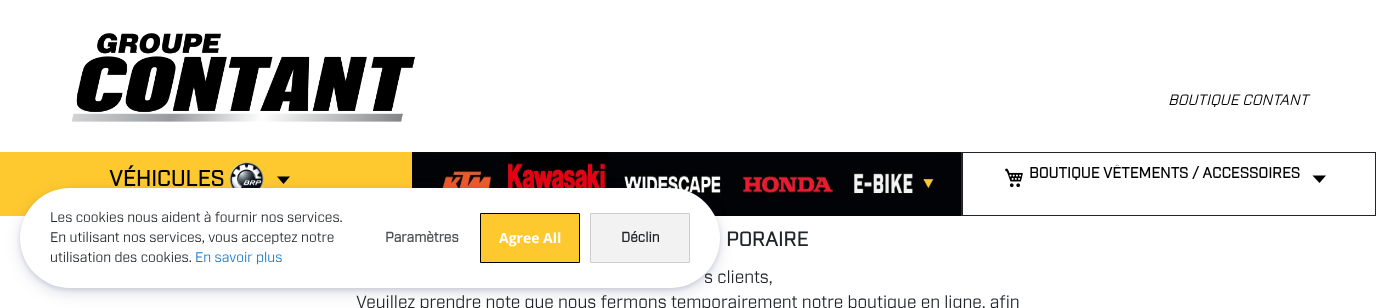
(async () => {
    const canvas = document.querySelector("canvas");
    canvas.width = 1376;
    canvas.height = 308;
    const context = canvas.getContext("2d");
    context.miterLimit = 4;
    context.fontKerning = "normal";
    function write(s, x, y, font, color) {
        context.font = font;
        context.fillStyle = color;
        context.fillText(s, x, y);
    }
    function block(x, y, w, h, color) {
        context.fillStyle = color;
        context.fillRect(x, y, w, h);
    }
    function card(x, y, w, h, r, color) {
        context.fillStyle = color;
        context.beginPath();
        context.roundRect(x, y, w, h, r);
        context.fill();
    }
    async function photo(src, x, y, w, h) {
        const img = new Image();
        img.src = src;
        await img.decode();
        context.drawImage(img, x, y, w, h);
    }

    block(0, 0, 1376, 308, "rgb(255, 255, 255)");
    await photo("media/1.png", 72, 33, 343, 89);
    write("BOUTIQUE CONTANT", 1168, 105, "italic 15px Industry", "rgb(0, 0, 0)");
    block(0, 152, 412, 64, "rgb(254, 201, 47)");
    write("VÉHICULES", 109, 186, "bold 22px Industry", "rgb(0, 0, 0)");
    await photo("media/2.png", 229, 162, 35, 26);
    context.beginPath();
    context.moveTo(283.5, 184);
    context.lineTo(290, 176.5);
    context.lineTo(277, 176.5);
    context.closePath();
    context.fill();
    await photo("media/3.png", 412, 152, 550, 64);
    context.strokeStyle = "rgb(33, 37, 41)";
    context.strokeRect(962.5, 152.5, 413, 63);
    await photo("media/4.png", 1005, 168, 18, 20);
    write("BOUTIQUE VÊTEMENTS / ACCESSOIRES", 1029, 178, "bold 15px Industry", "rgb(0, 0, 0)");
    context.beginPath();
    context.moveTo(1319.5, 183);
    context.lineTo(1326, 175.5);
    context.lineTo(1312.5, 175.5);
    context.closePath();
    context.fill();
    context.fillStyle = "rgba(93, 100, 148, 0.2)";
    context.filter = "blur(2px)";
    context.beginPath();
    context.roundRect(20, 190, 700, 100, 50);
    context.fill();
    context.filter = "none";
    context.fillStyle = "rgba(37, 44, 97, 0.15)";
    context.filter = "blur(7.5px)";
    context.beginPath();
    context.roundRect(20, 193, 700, 100, 50);
    context.fill();
    context.filter = "none";
    write("s clients,", 704, 283, "17.5px Industry", "rgb(33, 37, 41)");
    card(20, 188, 700, 100, 50, "rgb(255, 255, 255)");
    write("Les cookies nous aident à fournir nos services.", 50, 222, "14px Industry", "rgb(33, 37, 41)");
    write("En utilisant nos services, vous acceptez notre", 50, 242, "14px Industry", "rgb(33, 37, 41)");
    write("utilisation des cookies.", 50, 262, "14px Industry", "rgb(33, 37, 41)");
    write("En savoir plus", 195, 262, "14px Industry", "rgb(25, 121, 195)");
    write("Paramètres", 385, 242, "bold 14px Industry", "rgb(77, 81, 84)");
    context.fillStyle = "rgb(254, 201, 47)";
    context.beginPath();
    context.rect(480.5, 213.5, 99, 49);
    context.fill();
    context.strokeStyle = "rgb(0, 0, 0)";
    context.stroke();
    write("Agree All", 499, 243, "bold 14px Open Sans", "rgb(255, 255, 255)");
    context.fillStyle = "rgb(242, 242, 242)";
    context.beginPath();
    context.rect(590.5, 213.5, 99, 49);
    context.fill();
    context.strokeStyle = "rgb(205, 205, 205)";
    context.stroke();
    write("Déclin", 621, 242, "bold 14px Industry", "rgb(33, 37, 41)");
    write("PORAIRE", 726, 246, "bold 20px Industry", "rgb(33, 37, 41)");
    write("Veuillez prendre note que nous fermons temporairement notre boutique en ligne, afin", 356, 308, "17.5px Industry", "rgb(33, 37, 41)");
})();
